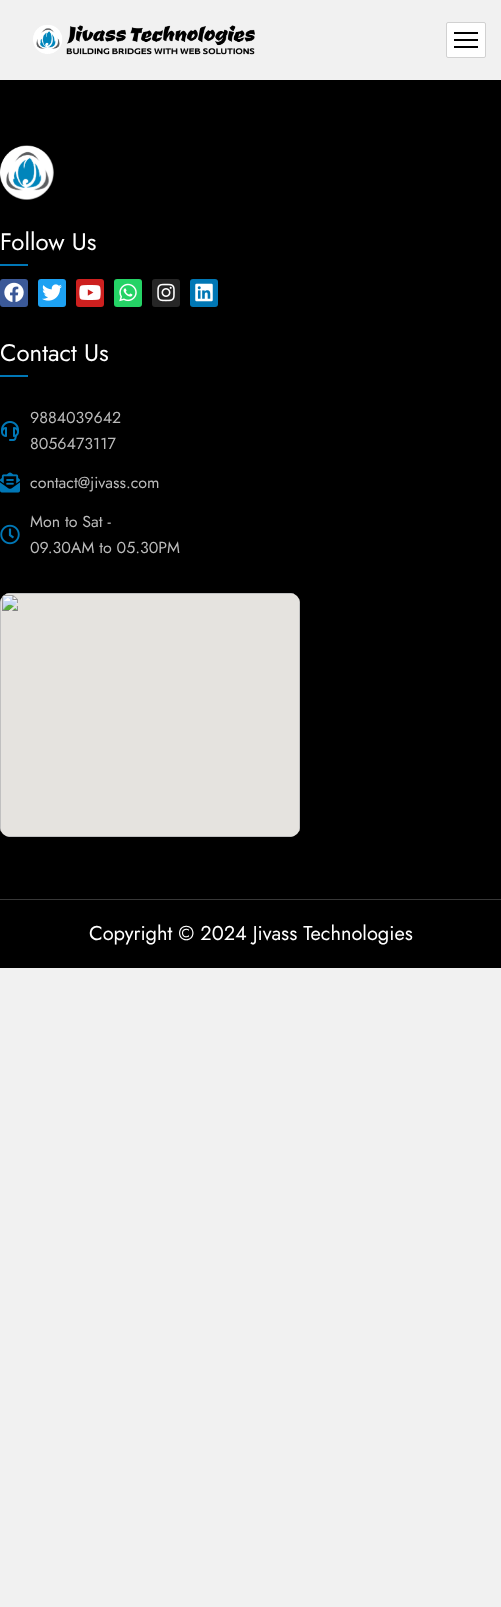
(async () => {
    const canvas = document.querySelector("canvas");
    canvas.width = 501;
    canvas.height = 1607;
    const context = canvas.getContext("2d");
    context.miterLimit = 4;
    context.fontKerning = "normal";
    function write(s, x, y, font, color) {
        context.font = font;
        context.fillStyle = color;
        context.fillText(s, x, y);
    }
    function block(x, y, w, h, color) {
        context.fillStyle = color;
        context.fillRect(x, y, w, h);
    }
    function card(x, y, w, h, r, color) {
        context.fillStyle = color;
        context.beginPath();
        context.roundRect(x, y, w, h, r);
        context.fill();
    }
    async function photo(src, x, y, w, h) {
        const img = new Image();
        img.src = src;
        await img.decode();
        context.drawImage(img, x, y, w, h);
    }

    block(0, 0, 501, 1607, "rgb(241, 241, 241)");
    await photo("media/1.png", 33, 25, 222, 30);
    context.fillStyle = "rgb(255, 255, 255)";
    context.beginPath();
    context.roundRect(446.5, 22.5, 39, 35, 1.5);
    context.fill();
    context.strokeStyle = "rgb(209, 209, 209)";
    context.stroke();
    block(454, 32, 24, 2, "rgb(0, 0, 0)");
    block(454, 39, 24, 2, "rgb(0, 0, 0)");
    block(454, 46, 24, 2, "rgb(0, 0, 0)");
    block(0, 80, 501, 888, "rgb(0, 0, 0)");
    await photo("media/2.png", 0, 145, 54, 55);
    write("Follow Us", 0, 250, "24px Jost", "rgb(255, 255, 255)");
    block(0, 264, 28, 2, "rgb(0, 119, 182)");
    card(0, 279, 28, 28, 3, "rgb(59, 89, 152)");
    await photo("media/3.png", 4, 282, 20, 20);
    card(38, 279, 28, 28, 3, "rgb(29, 161, 242)");
    await photo("media/4.png", 42, 284, 20, 17);
    card(76, 279, 28, 28, 3, "rgb(205, 32, 31)");
    await photo("media/5.png", 79, 285, 22, 15);
    card(114, 279, 28, 28, 3, "rgb(37, 211, 102)");
    await photo("media/6.png", 119, 283, 18, 19);
    card(152, 279, 28, 28, 3, "rgb(38, 38, 38)");
    await photo("media/7.png", 157, 283, 18, 19);
    card(190, 279, 28, 28, 3, "rgb(0, 119, 181)");
    await photo("media/8.png", 195, 283, 18, 19);
    write("Contact Us", 0, 361, "24px Jost", "rgb(255, 255, 255)");
    block(0, 375, 28, 2, "rgb(0, 119, 182)");
    await photo("media/9.png", 1, 421, 18, 20);
    write("9884039642", 30, 423, "16px Jost", "rgb(187, 187, 187)");
    write("8056473117", 30, 449, "16px Jost", "rgb(187, 187, 187)");
    await photo("media/10.png", 0, 472, 20, 21);
    write("contact@jivass.com", 30, 488, "16px Jost", "rgb(187, 187, 187)");
    await photo("media/11.png", 0, 524, 20, 21);
    write("Mon to Sat -", 30, 527, "16px Jost", "rgb(187, 187, 187)");
    write("09.30AM to 05.30PM", 30, 553, "16px Jost", "rgb(187, 187, 187)");
    await photo("media/12.png", 0, 593, 300, 244);
    block(0, 899, 501, 1, "rgb(56, 56, 56)");
    write("Copyright © 2024 Jivass Technologies", 89, 940, "20px Jost", "rgb(255, 255, 255)");
})();
